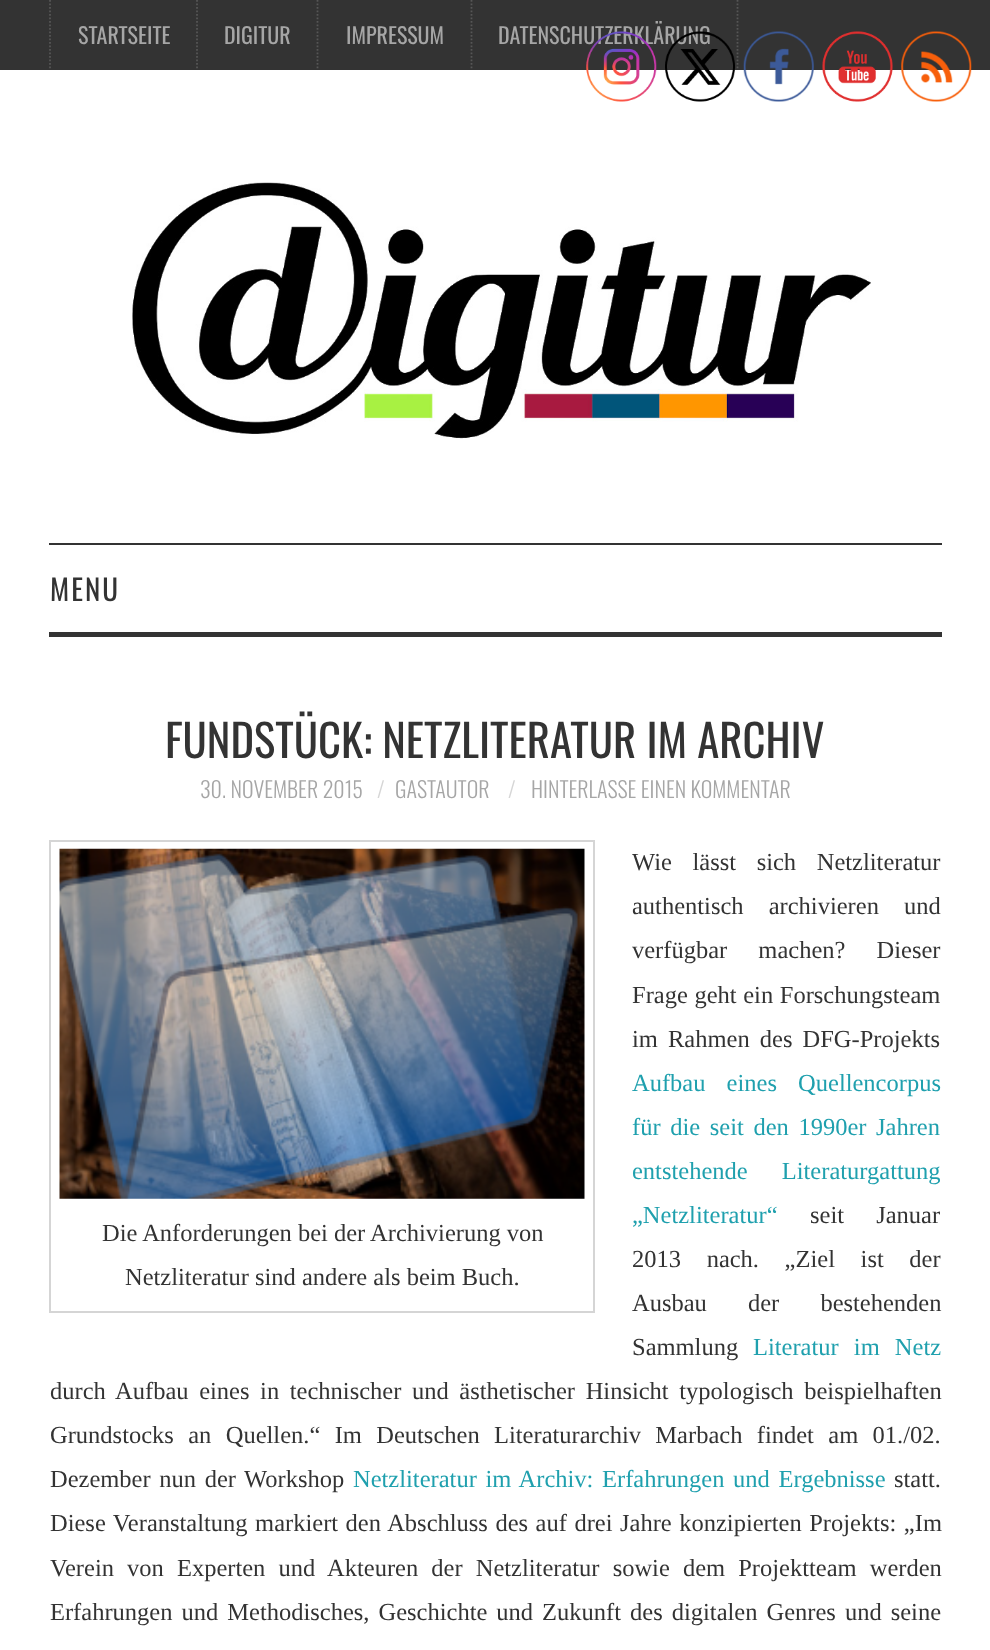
(async () => {
    const canvas = document.querySelector("canvas");
    canvas.width = 990;
    canvas.height = 1650;
    const context = canvas.getContext("2d");
    context.miterLimit = 4;
    context.fontKerning = "normal";
    function write(s, x, y, font, color) {
        context.font = font;
        context.fillStyle = color;
        context.fillText(s, x, y);
    }
    function block(x, y, w, h, color) {
        context.fillStyle = color;
        context.fillRect(x, y, w, h);
    }
    async function photo(src, x, y, w, h) {
        const img = new Image();
        img.src = src;
        await img.decode();
        context.drawImage(img, x, y, w, h);
    }

    block(0, 0, 990, 1650, "rgb(255, 255, 255)");
    block(0, 0, 990, 70, "rgb(51, 51, 51)");
    context.beginPath();
    context.moveTo(50, 0);
    context.lineTo(50, 70);
    context.strokeStyle = "rgb(86, 86, 86)";
    context.lineWidth = 1.8;
    context.setLineDash([1.75, 1.75]);
    context.stroke();
    context.beginPath();
    context.moveTo(197, 0);
    context.lineTo(197, 70);
    context.stroke();
    write("STARTSEITE", 78, 44, "22px Oswald", "rgb(166, 166, 166)");
    context.beginPath();
    context.moveTo(317.5, 0);
    context.lineTo(317.5, 70);
    context.stroke();
    write("DIGITUR", 224, 44, "22px Oswald", "rgb(166, 166, 166)");
    context.beginPath();
    context.moveTo(471.5, 0);
    context.lineTo(471.5, 70);
    context.stroke();
    write("IMPRESSUM", 346, 44, "22px Oswald", "rgb(166, 166, 166)");
    context.beginPath();
    context.moveTo(737.5, 0);
    context.lineTo(737.5, 70);
    context.stroke();
    write("DATENSCHUTZERKLÄRUNG", 498, 44, "22px Oswald", "rgb(166, 166, 166)");
    await photo("media/1.png", 586, 31, 71, 71);
    await photo("media/2.png", 665, 31, 70, 71);
    await photo("media/3.png", 743, 31, 71, 71);
    await photo("media/4.png", 822, 31, 71, 71);
    await photo("media/5.png", 901, 31, 71, 71);
    await photo("media/6.png", 132, 182, 739, 257);
    block(49, 543, 893, 2, "rgb(51, 51, 51)");
    block(49, 632, 893, 5, "rgb(51, 51, 51)");
    context.letterSpacing = "2px";
    write("MENU", 50, 601, "29px Oswald", "rgb(51, 51, 51)");
    context.letterSpacing = "0px";
    write("FUNDSTÜCK: NETZLITERATUR IM ARCHIV", 165, 758, "44.75px Oswald", "rgb(51, 51, 51)");
    write("30. NOVEMBER 2015", 200, 798, "300 22px Oswald", "rgb(166, 166, 166)");
    write("/", 377, 798, "300 22px Oswald", "rgb(214, 214, 214)");
    write("GASTAUTOR", 395, 798, "300 22px Oswald", "rgb(166, 166, 166)");
    write("/", 508, 798, "300 22px Oswald", "rgb(214, 214, 214)");
    write("HINTERLASSE EINEN KOMMENTAR", 531, 798, "300 22px Oswald", "rgb(166, 166, 166)");
    context.wordSpacing = "14.5px";
    write("Wie lässt sich Netzliteratur", 632, 870, "24.5px Liberation Serif", "rgb(51, 51, 51)");
    context.wordSpacing = "19px";
    write("authentisch archivieren und", 632, 914, "24.5px Liberation Serif", "rgb(51, 51, 51)");
    context.wordSpacing = "25px";
    write("verfügbar machen? Dieser", 632, 958, "24.5px Liberation Serif", "rgb(51, 51, 51)");
    context.wordSpacing = "0.5px";
    write("Frage geht ein Forschungsteam", 632, 1003, "24.5px Liberation Serif", "rgb(51, 51, 51)");
    context.wordSpacing = "4px";
    write("im Rahmen des DFG-Projekts", 632, 1047, "24.5px Liberation Serif", "rgb(51, 51, 51)");
    context.wordSpacing = "15px";
    write("Aufbau eines Quellencorpus", 632, 1091, "24.5px Liberation Serif", "rgb(31, 160, 174)");
    context.wordSpacing = "3.5px";
    write("für die seit den 1990er Jahren", 632, 1135, "24.5px Liberation Serif", "rgb(31, 160, 174)");
    context.wordSpacing = "28px";
    write("entstehende Literaturgattung", 632, 1179, "24.5px Liberation Serif", "rgb(31, 160, 174)");
    context.wordSpacing = "0px";
    write("„Netzliteratur“", 632, 1223, "24.5px Liberation Serif", "rgb(31, 160, 174)");
    context.wordSpacing = "26px";
    write("seit Januar", 810, 1223, "24.5px Liberation Serif", "rgb(51, 51, 51)");
    context.wordSpacing = "19.5px";
    write("2013 nach. „Ziel ist der", 632, 1267, "24.5px Liberation Serif", "rgb(51, 51, 51)");
    context.wordSpacing = "35px";
    write("Ausbau der bestehenden", 632, 1311, "24.5px Liberation Serif", "rgb(51, 51, 51)");
    context.wordSpacing = "0px";
    write("Sammlung", 632, 1355, "24.5px Liberation Serif", "rgb(51, 51, 51)");
    context.wordSpacing = "9px";
    write("Literatur im Netz", 753, 1355, "24.5px Liberation Serif", "rgb(31, 160, 174)");
    context.wordSpacing = "4.5px";
    write("durch Aufbau eines in technischer und ästhetischer Hinsicht typologisch beispielhaften", 50, 1399, "24.5px Liberation Serif", "rgb(51, 51, 51)");
    context.wordSpacing = "8.25px";
    write("Grundstocks an Quellen.“ Im Deutschen Literaturarchiv Marbach findet am 01./02.", 50, 1443, "24.5px Liberation Serif", "rgb(51, 51, 51)");
    context.wordSpacing = "2.5px";
    write("Dezember nun der Workshop", 50, 1487, "24.5px Liberation Serif", "rgb(51, 51, 51)");
    write("Netzliteratur im Archiv: Erfahrungen und Ergebnisse", 353, 1487, "24.5px Liberation Serif", "rgb(31, 160, 174)");
    context.wordSpacing = "0px";
    write("statt.", 894, 1487, "24.5px Liberation Serif", "rgb(51, 51, 51)");
    context.wordSpacing = "1.4px";
    write("Diese Veranstaltung markiert den Abschluss des auf drei Jahre konzipierten Projekts: „Im", 50, 1531, "24.5px Liberation Serif", "rgb(51, 51, 51)");
    context.wordSpacing = "7px";
    write("Verein von Experten und Akteuren der Netzliteratur sowie dem Projektteam werden", 50, 1576, "24.5px Liberation Serif", "rgb(51, 51, 51)");
    context.wordSpacing = "2.9px";
    write("Erfahrungen und Methodisches, Geschichte und Zukunft des digitalen Genres und seine", 50, 1620, "24.5px Liberation Serif", "rgb(51, 51, 51)");
    context.strokeStyle = "rgb(213, 213, 213)";
    context.lineWidth = 2;
    context.setLineDash([]);
    context.strokeRect(50, 841, 544, 471);
    await photo("media/7.png", 59, 848, 526, 351);
    context.wordSpacing = "0px";
    write("Die Anforderungen bei der Archivierung von", 102, 1241, "24.5px Liberation Serif", "rgb(51, 51, 51)");
    write("Netzliteratur sind andere als beim Buch.", 125, 1285, "24.5px Liberation Serif", "rgb(51, 51, 51)");
})();
